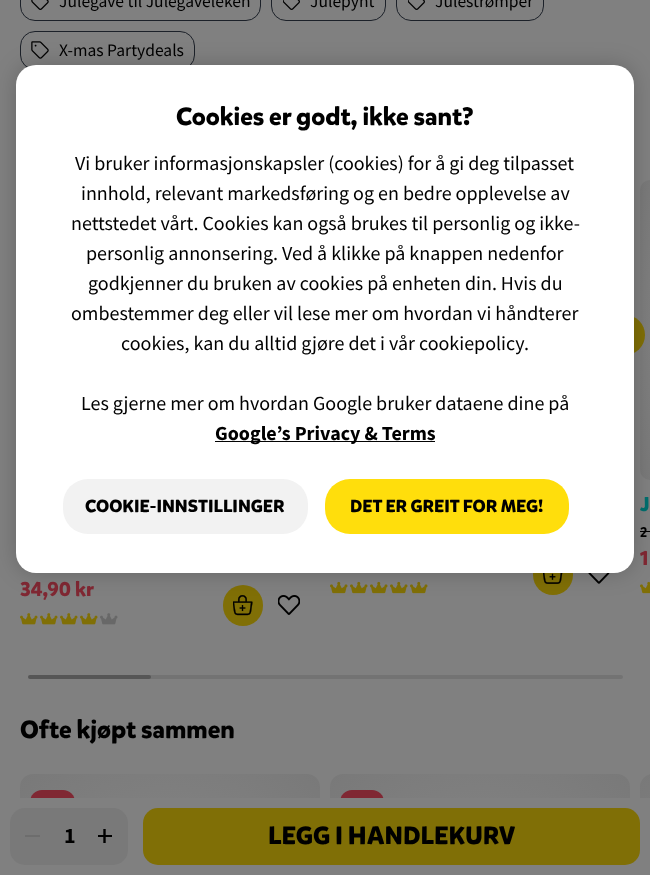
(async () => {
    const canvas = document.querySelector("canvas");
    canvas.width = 650;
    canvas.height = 875;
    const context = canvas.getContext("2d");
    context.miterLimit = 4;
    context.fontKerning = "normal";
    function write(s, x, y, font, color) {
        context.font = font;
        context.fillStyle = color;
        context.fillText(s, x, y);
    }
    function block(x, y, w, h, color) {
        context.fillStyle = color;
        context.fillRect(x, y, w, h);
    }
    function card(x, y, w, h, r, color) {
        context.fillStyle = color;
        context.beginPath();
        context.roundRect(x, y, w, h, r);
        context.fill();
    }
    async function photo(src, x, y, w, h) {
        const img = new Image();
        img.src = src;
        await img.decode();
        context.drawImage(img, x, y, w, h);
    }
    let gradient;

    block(0, 0, 650, 875, "rgb(128, 128, 128)");
    context.beginPath();
    context.roundRect(20.5, -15.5, 240, 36, 14.5);
    context.strokeStyle = "rgb(28, 33, 41)";
    context.stroke();
    await photo("media/1.png", 31, 0, 18, 10);
    write("Julegave til Julegaveleken", 59, 7, "17.5px Source Sans Pro", "rgb(0, 0, 0)");
    context.beginPath();
    context.roundRect(271.5, -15.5, 114, 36, 14.5);
    context.stroke();
    await photo("media/2.png", 283, 0, 17, 10);
    write("Julepynt", 310, 7, "17.5px Source Sans Pro", "rgb(0, 0, 0)");
    context.beginPath();
    context.roundRect(396.5, -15.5, 147, 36, 14.5);
    context.stroke();
    await photo("media/2.png", 408, 0, 17, 10);
    write("Julestrømper", 435, 7, "17.5px Source Sans Pro", "rgb(0, 0, 0)");
    context.beginPath();
    context.roundRect(20.5, 31.5, 174, 38, 14.5);
    context.stroke();
    await photo("media/3.png", 31, 41, 18, 18);
    write("X-mas Partydeals", 59, 56, "17.5px Source Sans Pro", "rgb(0, 0, 0)");
    gradient = context.createRadialGradient(170, 924, 0, 170, 924, 212);
    gradient.addColorStop(0.5, "rgb(128, 128, 128)");
    gradient.addColorStop(1, "rgb(121, 121, 121)");
    context.fillStyle = gradient;
    context.beginPath();
    context.roundRect(20, 774, 300, 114, 13);
    context.fill();
    card(30, 790, 45, 24, 12, "rgb(128, 40, 51)");
    gradient = context.createRadialGradient(480, 924, 0, 480, 924, 212);
    gradient.addColorStop(0.5, "rgb(128, 128, 128)");
    gradient.addColorStop(1, "rgb(121, 121, 121)");
    context.fillStyle = gradient;
    context.beginPath();
    context.roundRect(330, 774, 300, 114, 13);
    context.fill();
    card(340, 790, 44, 24, 12, "rgb(128, 40, 51)");
    gradient = context.createRadialGradient(790, 924, 0, 790, 924, 212);
    gradient.addColorStop(0.5, "rgb(128, 128, 128)");
    gradient.addColorStop(1, "rgb(121, 121, 121)");
    context.fillStyle = gradient;
    context.beginPath();
    context.moveTo(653, 774);
    context.lineTo(650, 774);
    context.lineTo(650, 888);
    context.lineTo(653, 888);
    context.bezierCurveTo(646, 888, 640, 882, 640, 875);
    context.lineTo(640, 787);
    context.bezierCurveTo(640, 780, 646, 774, 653, 774);
    context.closePath();
    context.fill();
    block(20, 798, 630, 77, "rgb(128, 128, 128)");
    card(10, 808, 118, 57, 15, "rgb(121, 121, 121)");
    block(25, 835, 15, 2, "rgb(109, 109, 109)");
    write("1", 64, 843, "bold 22px Source Sans Pro", "rgb(0, 0, 0)");
    block(98, 835, 14, 2, "rgb(0, 0, 0)");
    context.beginPath();
    context.moveTo(104.5, 843);
    context.lineTo(104.5, 829);
    context.strokeStyle = "rgb(0, 0, 0)";
    context.lineWidth = 2.4;
    context.stroke();
    card(143, 808, 497, 57, 15, "rgb(128, 111, 6)");
    write("LEGG I HANDLEKURV", 268, 844, "bold 25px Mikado", "rgb(0, 0, 0)");
    gradient = context.createRadialGradient(790, 330, 0, 790, 330, 212);
    gradient.addColorStop(0.5, "rgb(128, 128, 128)");
    gradient.addColorStop(1, "rgb(121, 121, 121)");
    context.fillStyle = gradient;
    context.beginPath();
    context.roundRect(640, 180, 10, 300, [13, 0, 0, 13]);
    context.fill();
    context.fillStyle = "rgb(128, 111, 6)";
    context.beginPath();
    context.arc(625, 335, 20, 0, Math.PI * 2);
    context.fill();
    write("J", 640, 511, "bold 20px Mikado", "rgb(1, 110, 109)");
    write("2", 640, 537, "500 14px Mikado", "rgb(0, 0, 0)");
    block(640, 531, 10, 1, "rgb(0, 0, 0)");
    write("1", 640, 565, "bold 20px Mikado", "rgb(128, 40, 51)");
    await photo("media/4.png", 640, 581, 10, 13);
    write("34,90 kr", 20, 596, "bold 20px Mikado", "rgb(128, 40, 51)");
    await photo("media/5.png", 20, 613, 18, 12);
    await photo("media/5.png", 40, 613, 18, 12);
    await photo("media/5.png", 60, 613, 18, 12);
    await photo("media/5.png", 80, 613, 18, 12);
    await photo("media/6.png", 100, 613, 18, 12);
    card(223, 585, 40, 41, 20, "rgb(128, 111, 6)");
    await photo("media/7.png", 233, 595, 20, 21);
    await photo("media/8.png", 278, 595, 22, 20);
    await photo("media/9.png", 330, 581, 18, 13);
    await photo("media/9.png", 350, 581, 18, 13);
    await photo("media/9.png", 370, 581, 18, 13);
    await photo("media/9.png", 390, 581, 18, 13);
    await photo("media/9.png", 410, 581, 18, 13);
    card(533, 554, 40, 41, 20, "rgb(128, 111, 6)");
    await photo("media/10.png", 543, 573, 20, 11);
    await photo("media/11.png", 588, 573, 22, 11);
    card(28, 675, 595, 4, 2, "rgb(115, 115, 115)");
    card(28, 675, 123, 4, 2, "rgba(0, 0, 0, 0.25)");
    write("Ofte kjøpt sammen", 20, 738, "bold 25px Mikado", "rgb(0, 0, 0)");
    context.fillStyle = "rgba(0, 0, 0, 0.2)";
    context.filter = "blur(11px)";
    context.beginPath();
    context.roundRect(16, 65, 618, 508, 20);
    context.fill();
    context.filter = "none";
    card(16, 65, 618, 508, 20, "rgb(255, 255, 255)");
    write("Cookies er godt, ikke sant?", 176, 125, "bold 25px Mikado", "rgb(0, 0, 0)");
    write("Vi bruker informasjonskapsler (cookies) for å gi deg tilpasset", 75, 170, "20px Source Sans Pro", "rgb(0, 0, 0)");
    write("innhold, relevant markedsføring og en bedre opplevelse av", 81, 200, "20px Source Sans Pro", "rgb(0, 0, 0)");
    write("nettstedet vårt. Cookies kan også brukes til personlig og ikke-", 71, 230, "20px Source Sans Pro", "rgb(0, 0, 0)");
    write("personlig annonsering. Ved å klikke på knappen nedenfor", 86, 260, "20px Source Sans Pro", "rgb(0, 0, 0)");
    write("godkjenner du bruken av cookies på enheten din. Hvis du", 88, 290, "20px Source Sans Pro", "rgb(0, 0, 0)");
    write("ombestemmer deg eller vil lese mer om hvordan vi håndterer", 71, 320, "20px Source Sans Pro", "rgb(0, 0, 0)");
    write("cookies, kan du alltid gjøre det i vår cookiepolicy.", 121, 350, "20px Source Sans Pro", "rgb(0, 0, 0)");
    write("Les gjerne mer om hvordan Google bruker dataene dine på", 81, 410, "20px Source Sans Pro", "rgb(0, 0, 0)");
    block(215, 441, 220, 1, "rgb(3, 3, 3)");
    write("Google’s Privacy & Terms", 215, 440, "bold 20px Source Sans Pro", "rgb(0, 0, 0)");
    card(63, 479, 245, 55, 25, "rgb(242, 242, 242)");
    write("COOKIE-INNSTILLINGER", 85, 512, "bold 17.5px Mikado", "rgb(0, 0, 0)");
    card(325, 479, 244, 55, 25, "rgb(255, 222, 12)");
    write("DET ER GREIT FOR MEG!", 350, 512, "bold 17.5px Mikado", "rgb(0, 0, 0)");
})();
